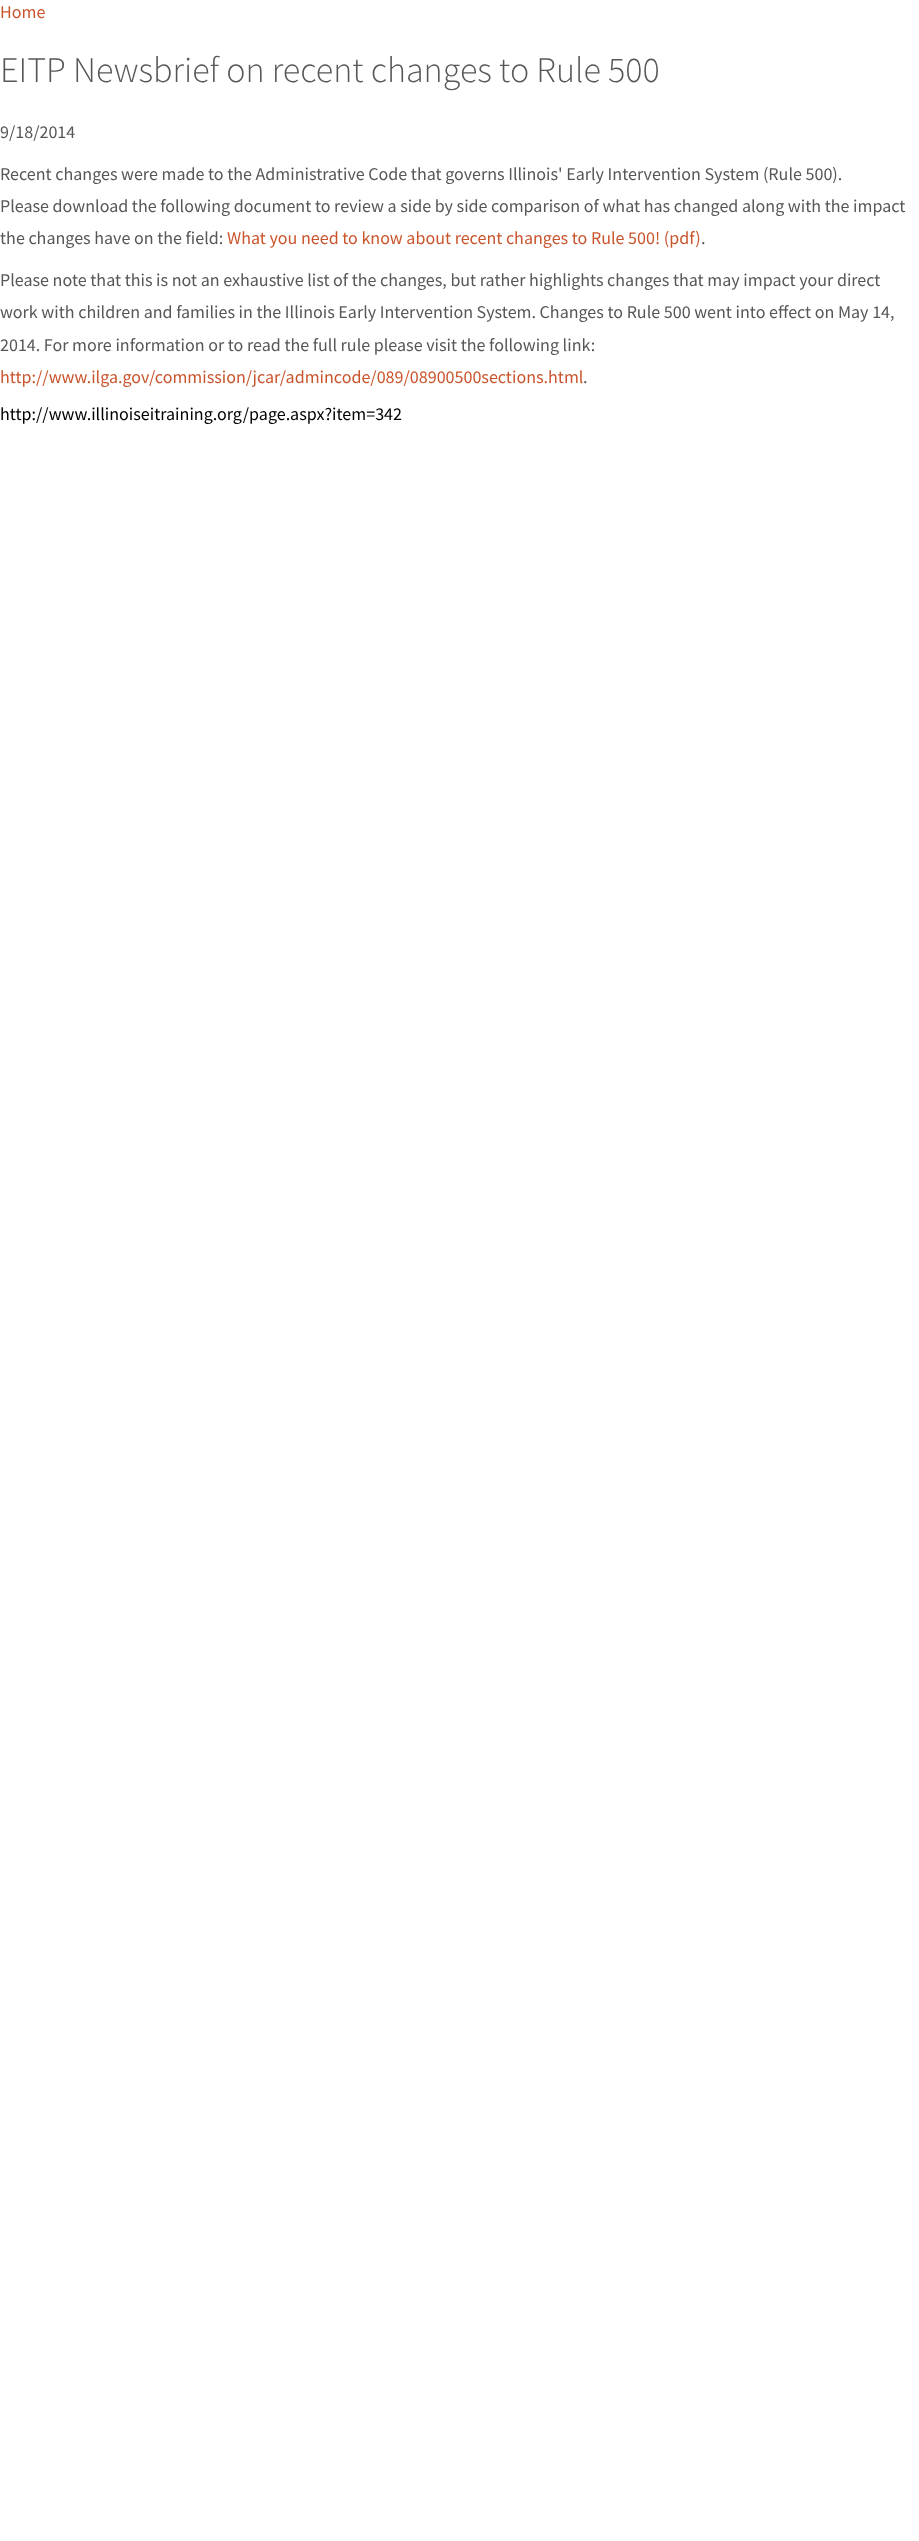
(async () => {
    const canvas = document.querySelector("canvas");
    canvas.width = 919;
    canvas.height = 2541;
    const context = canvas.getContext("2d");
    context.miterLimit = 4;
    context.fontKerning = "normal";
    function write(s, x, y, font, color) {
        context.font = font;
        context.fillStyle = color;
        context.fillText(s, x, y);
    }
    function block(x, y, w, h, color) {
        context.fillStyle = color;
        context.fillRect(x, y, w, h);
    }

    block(0, 0, 919, 2541, "rgb(255, 255, 255)");
    write("Home", 0, 18, "18px Source Sans Pro", "rgb(202, 85, 45)");
    write("EITP Newsbrief on recent changes to Rule 500", 0, 82, "300 36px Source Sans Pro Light", "rgb(87, 87, 87)");
    write("9/18/2014", 0, 138, "18px Source Sans Pro", "rgb(87, 87, 87)");
    write("Recent changes were made to the Administrative Code that governs Illinois' Early Intervention System (Rule 500).", 0, 180, "18px Source Sans Pro", "rgb(87, 87, 87)");
    write("Please download the following document to review a side by side comparison of what has changed along with the impact", 0, 212, "18px Source Sans Pro", "rgb(87, 87, 87)");
    write("the changes have on the field:", 0, 244, "18px Source Sans Pro", "rgb(87, 87, 87)");
    write("What you need to know about recent changes to Rule 500! (pdf)", 227, 244, "18px Source Sans Pro", "rgb(202, 85, 45)");
    write(".", 701, 244, "18px Source Sans Pro", "rgb(87, 87, 87)");
    write("Please note that this is not an exhaustive list of the changes, but rather highlights changes that may impact your direct", 0, 286, "18px Source Sans Pro", "rgb(87, 87, 87)");
    write("work with children and families in the Illinois Early Intervention System. Changes to Rule 500 went into effect on May 14,", 0, 318, "18px Source Sans Pro", "rgb(87, 87, 87)");
    write("2014. For more information or to read the full rule please visit the following link:", 0, 351, "18px Source Sans Pro", "rgb(87, 87, 87)");
    write("http://www.ilga.gov/commission/jcar/admincode/089/08900500sections.html", 0, 383, "18px Source Sans Pro", "rgb(202, 85, 45)");
    write(".", 583, 383, "18px Source Sans Pro", "rgb(87, 87, 87)");
    write("http://www.illinoiseitraining.org/page.aspx?item=342", 0, 420, "18px Source Sans Pro", "rgb(0, 0, 0)");
})();
